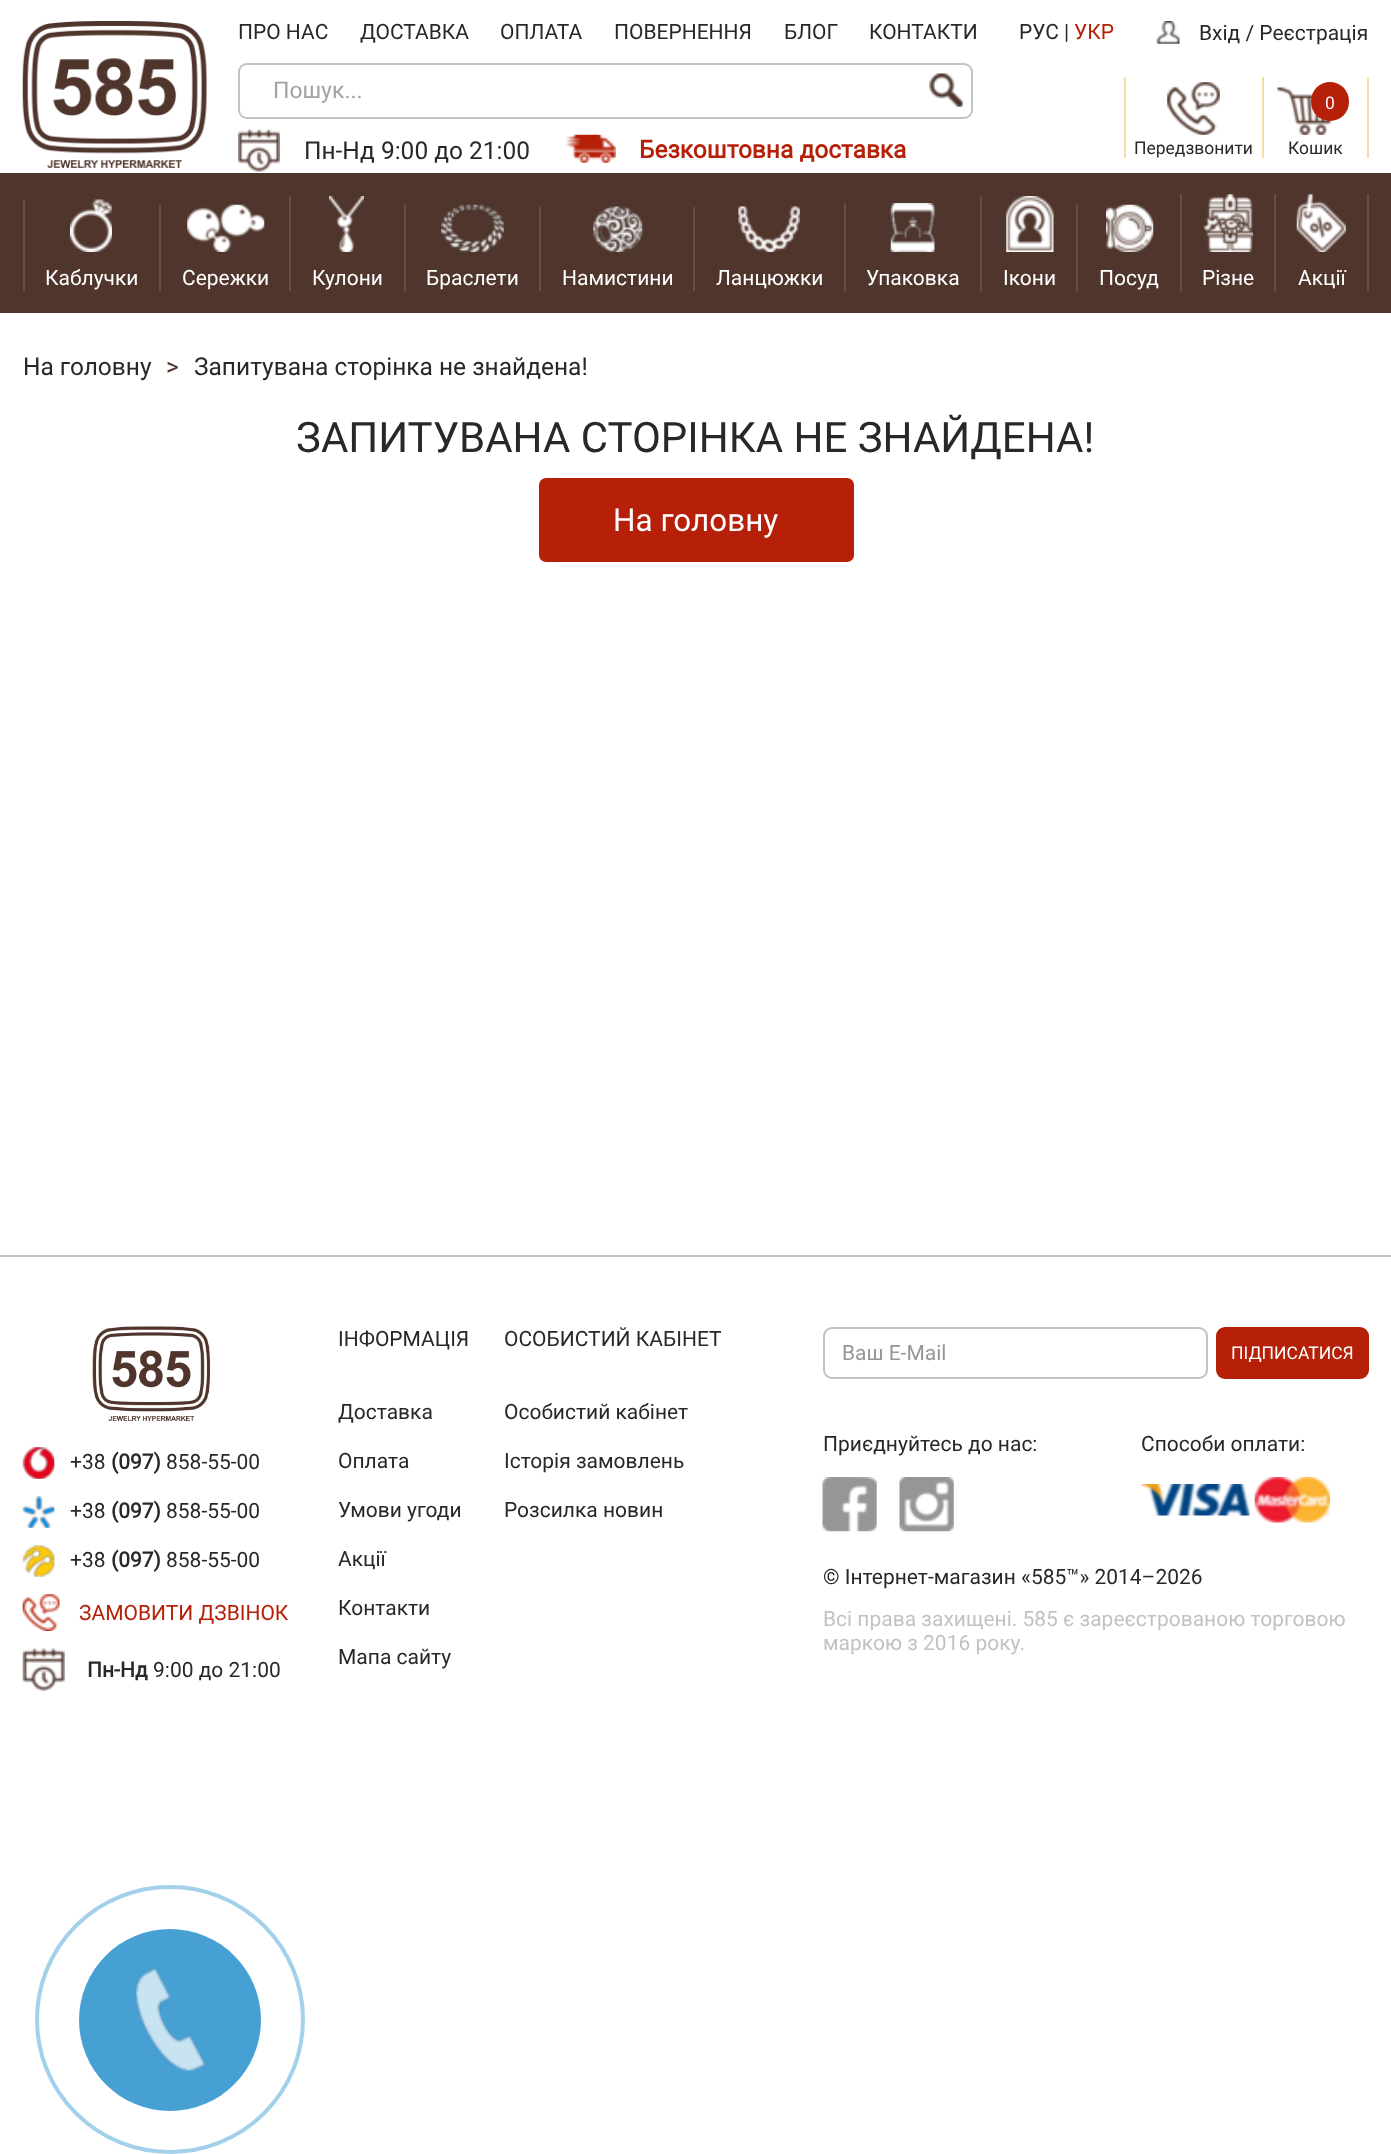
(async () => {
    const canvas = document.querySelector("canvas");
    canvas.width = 1391;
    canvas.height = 2154;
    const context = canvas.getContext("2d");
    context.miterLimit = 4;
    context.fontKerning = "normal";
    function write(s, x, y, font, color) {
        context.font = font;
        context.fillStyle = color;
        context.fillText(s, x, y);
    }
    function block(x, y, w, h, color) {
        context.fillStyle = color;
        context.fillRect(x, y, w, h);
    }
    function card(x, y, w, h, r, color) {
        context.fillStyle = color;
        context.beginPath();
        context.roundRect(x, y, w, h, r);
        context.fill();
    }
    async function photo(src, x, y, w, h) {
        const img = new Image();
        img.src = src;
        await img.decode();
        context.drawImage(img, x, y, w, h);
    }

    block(0, 0, 1391, 2154, "rgb(255, 255, 255)");
    await photo("media/1.png", 22, 21, 185, 147);
    write("ПРО НАC", 238, 39, "21px Roboto", "rgb(40, 40, 40)");
    write("ДОСТАВКА", 360, 39, "21px Roboto", "rgb(40, 40, 40)");
    write("ОПЛАТА", 500, 39, "21px Roboto", "rgb(40, 40, 40)");
    write("ПОВЕРНЕННЯ", 614, 39, "21px Roboto", "rgb(40, 40, 40)");
    write("БЛОГ", 784, 39, "21px Roboto", "rgb(40, 40, 40)");
    write("КОНТАКТИ", 869, 39, "21px Roboto", "rgb(40, 40, 40)");
    context.beginPath();
    context.roundRect(239, 64, 733, 54, 8);
    context.strokeStyle = "rgb(194, 194, 194)";
    context.lineWidth = 2;
    context.stroke();
    write("Пошук...", 273, 98, "23px Roboto", "rgb(163, 162, 162)");
    await photo("media/2.png", 929, 73, 34, 34);
    await photo("media/3.png", 238, 129, 42, 43);
    write("Пн-Нд 9:00 до 21:00", 304, 159, "24.5px Roboto", "rgb(40, 40, 40)");
    await photo("media/4.png", 565, 134, 51, 29);
    write("Безкоштовна доставка", 639, 158, "bold 24.5px Roboto", "rgb(182, 32, 8)");
    write("РУС |", 1019, 39, "21px Roboto", "rgb(40, 40, 40)");
    write("УКР", 1074, 39, "21px Roboto", "rgb(182, 32, 8)");
    await photo("media/5.png", 1156, 21, 24, 23);
    write("Вхід / Реєстрація", 1199, 40, "21px Roboto", "rgb(40, 40, 40)");
    block(1262, 77, 2, 81, "rgb(246, 220, 168)");
    block(1124, 77, 2, 81, "rgb(246, 220, 168)");
    await photo("media/6.png", 1167, 82, 53, 53);
    write("Передзвонити", 1134, 154, "17.5px Roboto", "rgb(40, 40, 40)");
    block(1367, 77, 2, 81, "rgb(246, 220, 168)");
    await photo("media/7.png", 1277, 87, 56, 48);
    card(1311, 82, 38, 39, 19, "rgb(182, 32, 8)");
    write("0", 1325, 109, "17.5px Roboto", "rgb(255, 255, 255)");
    write("Кошик", 1288, 154, "17.5px Roboto", "rgb(40, 40, 40)");
    block(0, 173, 1391, 140, "rgb(79, 53, 44)");
    block(23, 200, 2, 91, "rgb(108, 76, 64)");
    await photo("media/8.png", 70, 199, 42, 53);
    write("Каблучки", 45, 285, "21px Roboto", "rgb(255, 255, 255)");
    block(159, 205, 2, 86, "rgb(108, 76, 64)");
    await photo("media/9.png", 187, 204, 78, 48);
    write("Сережки", 182, 285, "21px Roboto", "rgb(255, 255, 255)");
    block(289, 196, 2, 95, "rgb(108, 76, 64)");
    await photo("media/10.png", 329, 196, 35, 56);
    write("Кулони", 312, 285, "21px Roboto", "rgb(255, 255, 255)");
    block(404, 205, 2, 86, "rgb(108, 76, 64)");
    await photo("media/11.png", 441, 204, 63, 48);
    write("Браслети", 426, 285, "21px Roboto", "rgb(255, 255, 255)");
    block(539, 207, 2, 84, "rgb(108, 76, 64)");
    await photo("media/12.png", 593, 206, 50, 46);
    write("Намистини", 562, 285, "21px Roboto", "rgb(255, 255, 255)");
    block(693, 207, 2, 84, "rgb(108, 76, 64)");
    await photo("media/13.png", 738, 206, 62, 46);
    write("Ланцюжки", 716, 285, "21px Roboto", "rgb(255, 255, 255)");
    block(844, 203, 2, 88, "rgb(108, 76, 64)");
    await photo("media/14.png", 890, 203, 45, 49);
    write("Упаковка", 866, 285, "21px Roboto", "rgb(255, 255, 255)");
    block(980, 196, 2, 95, "rgb(108, 76, 64)");
    await photo("media/15.png", 1006, 196, 48, 56);
    write("Iкони", 1003, 285, "21px Roboto", "rgb(255, 255, 255)");
    block(1076, 205, 2, 86, "rgb(108, 76, 64)");
    await photo("media/16.png", 1106, 204, 48, 48);
    write("Посуд", 1099, 285, "21px Roboto", "rgb(255, 255, 255)");
    block(1180, 194, 2, 97, "rgb(108, 76, 64)");
    await photo("media/17.png", 1204, 194, 49, 58);
    write("Рiзне", 1202, 285, "21px Roboto", "rgb(255, 255, 255)");
    block(1367, 194, 2, 97, "rgb(108, 76, 64)");
    block(1274, 194, 2, 97, "rgb(108, 76, 64)");
    await photo("media/18.png", 1296, 194, 50, 58);
    write("Акції", 1298, 285, "21px Roboto", "rgb(255, 255, 255)");
    write("На головну", 23, 375, "24.5px Roboto", "rgb(40, 40, 40)");
    write(">", 166, 375, "24.5px Roboto", "rgb(79, 53, 44)");
    write("Запитувана сторінка не знайдена!", 194, 375, "24.5px Roboto", "rgb(40, 40, 40)");
    write("ЗАПИТУВАНА СТОРІНКА НЕ ЗНАЙДЕНА!", 296, 452, "42px Roboto", "rgb(40, 40, 40)");
    card(539, 478, 315, 84, 7, "rgb(182, 32, 8)");
    write("На головну", 613, 531, "31.5px Roboto", "rgb(255, 255, 255)");
    block(0, 1255, 1391, 2, "rgb(194, 194, 194)");
    await photo("media/19.png", 92, 1326, 118, 95);
    await photo("media/20.png", 22, 1447, 33, 32);
    write("+38", 70, 1469, "21px Roboto", "rgb(40, 40, 40)");
    write("(097)", 111, 1469, "bold 21px Roboto", "rgb(40, 40, 40)");
    write("858-55-00", 166, 1469, "21px Roboto", "rgb(40, 40, 40)");
    await photo("media/21.png", 22, 1496, 33, 32);
    write("+38", 70, 1518, "21px Roboto", "rgb(40, 40, 40)");
    write("(097)", 111, 1518, "bold 21px Roboto", "rgb(40, 40, 40)");
    write("858-55-00", 166, 1518, "21px Roboto", "rgb(40, 40, 40)");
    await photo("media/22.png", 22, 1545, 33, 32);
    write("+38", 70, 1567, "21px Roboto", "rgb(40, 40, 40)");
    write("(097)", 111, 1567, "bold 21px Roboto", "rgb(40, 40, 40)");
    write("858-55-00", 166, 1567, "21px Roboto", "rgb(40, 40, 40)");
    await photo("media/23.png", 22, 1594, 38, 37);
    write("ЗАМОВИТИ ДЗВІНОК", 79, 1620, "21px Roboto", "rgb(182, 32, 8)");
    await photo("media/24.png", 22, 1648, 43, 43);
    write("Пн-Нд", 87, 1677, "bold 21px Roboto", "rgb(40, 40, 40)");
    write("9:00 до 21:00", 153, 1677, "21px Roboto", "rgb(40, 40, 40)");
    write("ІНФОРМАЦІЯ", 338, 1346, "21px Roboto", "rgb(40, 40, 40)");
    write("Доставка", 338, 1419, "21px Roboto", "rgb(40, 40, 40)");
    write("Оплата", 338, 1468, "21px Roboto", "rgb(40, 40, 40)");
    write("Умови угоди", 338, 1517, "21px Roboto", "rgb(40, 40, 40)");
    write("Акції", 338, 1566, "21px Roboto", "rgb(40, 40, 40)");
    write("Контакти", 338, 1615, "21px Roboto", "rgb(40, 40, 40)");
    write("Мапа сайту", 338, 1664, "21px Roboto", "rgb(40, 40, 40)");
    write("ОСОБИСТИЙ КАБІНЕТ", 504, 1346, "21px Roboto", "rgb(40, 40, 40)");
    write("Особистий кабінет", 504, 1419, "21px Roboto", "rgb(40, 40, 40)");
    write("Історія замовлень", 504, 1468, "21px Roboto", "rgb(40, 40, 40)");
    write("Розсилка новин", 504, 1517, "21px Roboto", "rgb(40, 40, 40)");
    context.beginPath();
    context.roundRect(824, 1328, 383, 50, 8);
    context.stroke();
    write("Ваш E-Mail", 842, 1360, "21px Roboto", "rgb(150, 150, 150)");
    card(1216, 1327, 153, 52, 9, "rgb(182, 32, 8)");
    write("ПІДПИСАТИСЯ", 1231, 1359, "17.5px Roboto", "rgb(255, 255, 255)");
    write("Приєднуйтесь до нас:", 823, 1451, "21px Roboto", "rgb(40, 40, 40)");
    await photo("media/25.png", 822, 1477, 55, 55);
    await photo("media/26.png", 899, 1477, 55, 55);
    write("Способи оплати:", 1141, 1451, "21px Roboto", "rgb(40, 40, 40)");
    await photo("media/27.png", 1141, 1484, 109, 32);
    await photo("media/28.png", 1254, 1477, 76, 46);
    write("© Інтернет-магазин «585™» 2014–2026", 823, 1584, "21px Roboto", "rgb(40, 40, 40)");
    write("Всі права захищені. 585 є зареєстрованою торговою", 823, 1626, "21px Roboto", "rgb(194, 194, 194)");
    write("маркою з 2016 року.", 823, 1650, "21px Roboto", "rgb(194, 194, 194)");
    context.beginPath();
    context.roundRect(37, 1887, 266, 265, 132.5);
    context.strokeStyle = "rgb(163, 208, 234)";
    context.lineWidth = 4;
    context.stroke();
    context.fillStyle = "rgb(70, 160, 212)";
    context.beginPath();
    context.arc(170, 2020, 91, 0, Math.PI * 2);
    context.fill();
    await photo("media/29.png", 135, 1968, 70, 103);
})();
